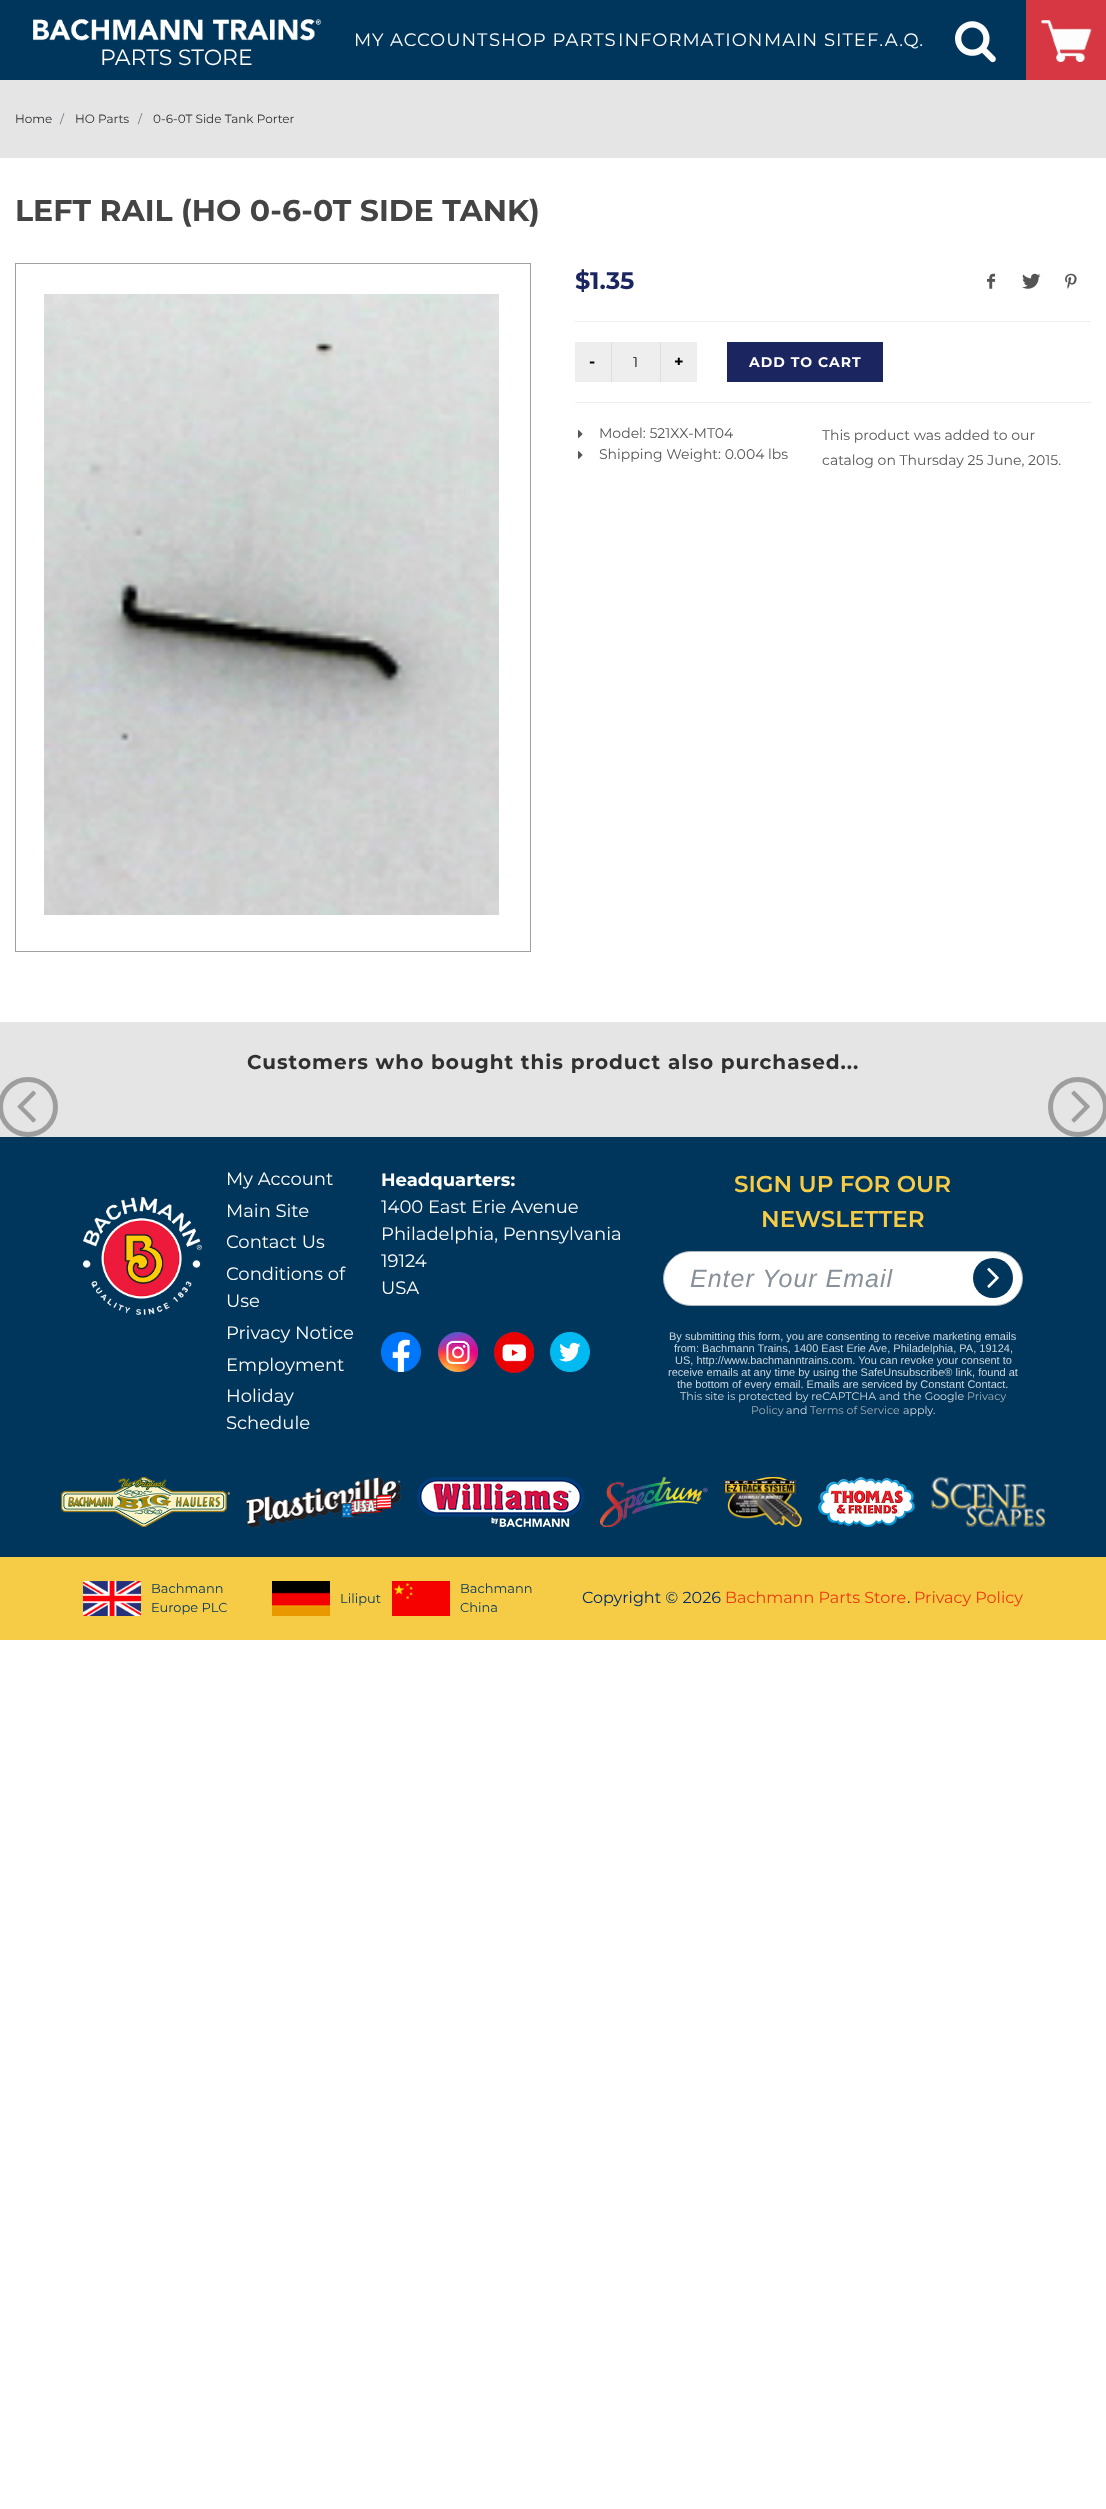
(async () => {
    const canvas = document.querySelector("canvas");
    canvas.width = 1106;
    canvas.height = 2509;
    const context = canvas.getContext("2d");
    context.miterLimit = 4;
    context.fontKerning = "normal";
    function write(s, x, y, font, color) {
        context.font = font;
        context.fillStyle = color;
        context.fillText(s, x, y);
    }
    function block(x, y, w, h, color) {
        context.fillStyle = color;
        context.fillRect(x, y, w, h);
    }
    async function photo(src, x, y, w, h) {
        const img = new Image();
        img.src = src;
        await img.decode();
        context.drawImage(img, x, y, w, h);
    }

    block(0, 0, 1106, 2509, "rgb(255, 255, 255)");
    block(0, 0, 1026, 80, "rgb(0, 54, 92)");
    context.letterSpacing = "1px";
    write("MY ACCOUNT", 354, 46, "18px Montserrat", "rgb(255, 255, 255)");
    write("SHOP PARTS", 489, 46, "18px Montserrat", "rgb(255, 255, 255)");
    write("INFORMATION", 618, 46, "18px Montserrat", "rgb(255, 255, 255)");
    write("MAIN SITE", 764, 46, "18px Montserrat", "rgb(255, 255, 255)");
    write("F.A.Q.", 867, 46, "18px Montserrat", "rgb(255, 255, 255)");
    await photo("media/1.png", 955, 21, 41, 42);
    block(1026, 0, 80, 80, "rgb(215, 55, 66)");
    await photo("media/2.png", 1040, 20, 52, 42);
    await photo("media/3.png", 33, 19, 289, 22);
    context.letterSpacing = "0px";
    write("PARTS STORE", 100, 65, "22px Montserrat", "rgb(255, 255, 255)");
    block(0, 80, 1106, 78, "rgb(229, 229, 230)");
    write("Home", 15, 123, "12px Montserrat", "rgb(48, 48, 48)");
    write("/", 60, 123, "12px Montserrat", "rgb(108, 117, 125)");
    write("HO Parts", 75, 123, "12px Montserrat", "rgb(48, 48, 48)");
    write("/", 138, 123, "12px Montserrat", "rgb(108, 117, 125)");
    write("0-6-0T Side Tank Porter", 153, 123, "12px Montserrat", "rgb(48, 48, 48)");
    write("LEFT RAIL (HO 0-6-0T SIDE TANK)", 15, 221, "bold 30px Montserrat", "rgb(68, 68, 68)");
    context.strokeStyle = "rgb(161, 160, 160)";
    context.strokeRect(15.5, 263.5, 515, 688);
    await photo("media/4.png", 44, 294, 455, 621);
    write("$1.35", 575, 289, "bold 24px Montserrat", "rgb(27, 37, 95)");
    await photo("media/5.png", 987, 273, 9, 16);
    await photo("media/6.png", 1022, 273, 19, 16);
    await photo("media/7.png", 1065, 273, 12, 16);
    block(575, 321, 516, 1, "rgb(238, 238, 238)");
    block(575, 342, 36, 40, "rgb(238, 238, 238)");
    write("-", 589, 367, "bold 16px Montserrat", "rgb(0, 0, 0)");
    block(612, 342, 48, 40, "rgb(238, 238, 238)");
    block(660, 342, 1, 40, "rgb(221, 221, 221)");
    block(611, 342, 1, 40, "rgb(221, 221, 221)");
    write("1", 633, 367, "14px Montserrat", "rgb(0, 0, 0)");
    block(661, 342, 36, 40, "rgb(238, 238, 238)");
    write("+", 674, 367, "bold 16px Montserrat", "rgb(0, 0, 0)");
    block(727, 342, 156, 40, "rgb(27, 37, 95)");
    context.letterSpacing = "1px";
    write("ADD TO CART", 749, 367, "bold 14px Montserrat", "rgb(255, 255, 255)");
    block(575, 402, 516, 1, "rgb(238, 238, 238)");
    await photo("media/8.png", 578, 430, 5, 8);
    context.letterSpacing = "0px";
    write("Model: 521XX-MT04", 599, 438, "14px Montserrat", "rgb(85, 85, 85)");
    await photo("media/8.png", 578, 451, 5, 8);
    write("Shipping Weight: 0.004 lbs", 599, 459, "14px Montserrat", "rgb(85, 85, 85)");
    write("This product was added to our", 822, 440, "14px Montserrat", "rgb(85, 85, 85)");
    write("catalog on Thursday 25 June, 2015.", 822, 465, "14px Montserrat", "rgb(85, 85, 85)");
    block(0, 1022, 1106, 115, "rgb(229, 229, 230)");
    context.letterSpacing = "1px";
    write("Customers who bought this product also purchased...", 247, 1069, "bold 20px Montserrat", "rgb(48, 48, 48)");
    context.beginPath();
    context.arc(28, 1107, 27.5, 0, Math.PI * 2);
    context.strokeStyle = "rgb(158, 158, 158)";
    context.lineWidth = 5;
    context.stroke();
    await photo("media/9.png", 17, 1090, 19, 33);
    context.beginPath();
    context.arc(1078, 1107, 27.5, 0, Math.PI * 2);
    context.stroke();
    await photo("media/10.png", 1071, 1090, 19, 33);
    block(0, 1137, 1106, 420, "rgb(0, 54, 92)");
    await photo("media/11.png", 83, 1197, 119, 118);
    context.letterSpacing = "0px";
    write("My Account", 226, 1185, "18px Montserrat", "rgb(255, 255, 255)");
    write("Main Site", 226, 1217, "18px Montserrat", "rgb(255, 255, 255)");
    write("Contact Us", 226, 1248, "18px Montserrat", "rgb(255, 255, 255)");
    write("Conditions of", 226, 1280, "18px Montserrat", "rgb(255, 255, 255)");
    write("Use", 226, 1307, "18px Montserrat", "rgb(255, 255, 255)");
    write("Privacy Notice", 226, 1339, "18px Montserrat", "rgb(255, 255, 255)");
    write("Employment", 226, 1371, "18px Montserrat", "rgb(255, 255, 255)");
    write("Holiday", 226, 1402, "18px Montserrat", "rgb(255, 255, 255)");
    write("Schedule", 226, 1429, "18px Montserrat", "rgb(255, 255, 255)");
    write("Headquarters:", 381, 1186, "bold 18px Montserrat", "rgb(255, 255, 255)");
    write("1400 East Erie Avenue", 381, 1213, "18px Montserrat", "rgb(255, 255, 255)");
    write("Philadelphia, Pennsylvania", 381, 1240, "18px Montserrat", "rgb(255, 255, 255)");
    write("19124", 381, 1267, "18px Montserrat", "rgb(255, 255, 255)");
    write("USA", 381, 1294, "18px Montserrat", "rgb(255, 255, 255)");
    await photo("media/12.png", 381, 1332, 40, 40);
    await photo("media/13.png", 438, 1332, 40, 40);
    await photo("media/14.png", 494, 1332, 40, 41);
    await photo("media/15.png", 550, 1332, 40, 40);
    write("SIGN UP FOR OUR", 734, 1192, "600 23px Montserrat", "rgb(246, 204, 71)");
    write("NEWSLETTER", 761, 1227, "600 23px Montserrat", "rgb(246, 204, 71)");
    context.fillStyle = "rgb(255, 255, 255)";
    context.beginPath();
    context.roundRect(663.5, 1251.5, 359, 54, 27);
    context.fill();
    context.strokeStyle = "rgb(176, 182, 187)";
    context.lineWidth = 1;
    context.stroke();
    context.letterSpacing = "1px";
    write("Enter Your Email", 690, 1287, "italic 25px Liberation Sans", "rgb(136, 145, 154)");
    context.fillStyle = "rgb(0, 54, 92)";
    context.beginPath();
    context.arc(993, 1278, 20, 0, Math.PI * 2);
    context.fill();
    await photo("media/16.png", 987, 1267, 12, 21);
    context.letterSpacing = "0px";
    write("By submitting this form, you are consenting to receive marketing emails", 669, 1340, "11px Liberation Sans", "rgb(204, 215, 222)");
    write("from: Bachmann Trains, 1400 East Erie Ave, Philadelphia, PA, 19124,", 674, 1352, "11px Liberation Sans", "rgb(204, 215, 222)");
    write("US, http://www.bachmanntrains.com. You can revoke your consent to", 675, 1364, "11px Liberation Sans", "rgb(204, 215, 222)");
    write("receive emails at any time by using the SafeUnsubscribe® link, found at", 668, 1376, "11px Liberation Sans", "rgb(204, 215, 222)");
    write("the bottom of every email. Emails are serviced by Constant Contact.", 677, 1388, "11px Liberation Sans", "rgb(204, 215, 222)");
    write("This site is protected by reCAPTCHA and the Google", 680, 1400, "11px Montserrat", "rgb(204, 215, 222)");
    write("Privacy", 967, 1400, "11px Montserrat", "rgb(163, 174, 182)");
    write("Policy", 751, 1414, "11px Montserrat", "rgb(163, 174, 182)");
    write("and", 786, 1414, "11px Montserrat", "rgb(204, 215, 222)");
    write("Terms of Service", 810, 1414, "11px Montserrat", "rgb(163, 174, 182)");
    write("apply.", 903, 1414, "11px Montserrat", "rgb(204, 215, 222)");
    await photo("media/17.png", 61, 1477, 169, 50);
    await photo("media/18.png", 246, 1477, 155, 50);
    await photo("media/19.png", 417, 1477, 167, 50);
    await photo("media/20.png", 600, 1477, 108, 50);
    await photo("media/21.png", 724, 1477, 78, 50);
    await photo("media/22.png", 818, 1477, 97, 50);
    await photo("media/23.png", 931, 1477, 114, 50);
    block(0, 1557, 1106, 83, "rgb(246, 204, 71)");
    await photo("media/24.png", 83, 1581, 58, 35);
    write("Bachmann", 151, 1593, "13px Montserrat", "rgb(0, 54, 92)");
    write("Europe PLC", 151, 1612, "13px Montserrat", "rgb(0, 54, 92)");
    await photo("media/25.png", 272, 1581, 58, 35);
    write("Liliput", 340, 1603, "13px Montserrat", "rgb(0, 54, 92)");
    await photo("media/26.png", 392, 1581, 58, 35);
    write("Bachmann", 460, 1593, "13px Montserrat", "rgb(0, 54, 92)");
    write("China", 460, 1612, "13px Montserrat", "rgb(0, 54, 92)");
    write("Copyright © 2026", 582, 1603, "16px Montserrat", "rgb(1, 42, 106)");
    write("Bachmann Parts Store", 725, 1603, "16px Montserrat", "rgb(235, 58, 17)");
    write(".", 907, 1603, "16px Montserrat", "rgb(1, 42, 106)");
    write("Privacy Policy", 914, 1603, "16px Montserrat", "rgb(235, 58, 17)");
})();
